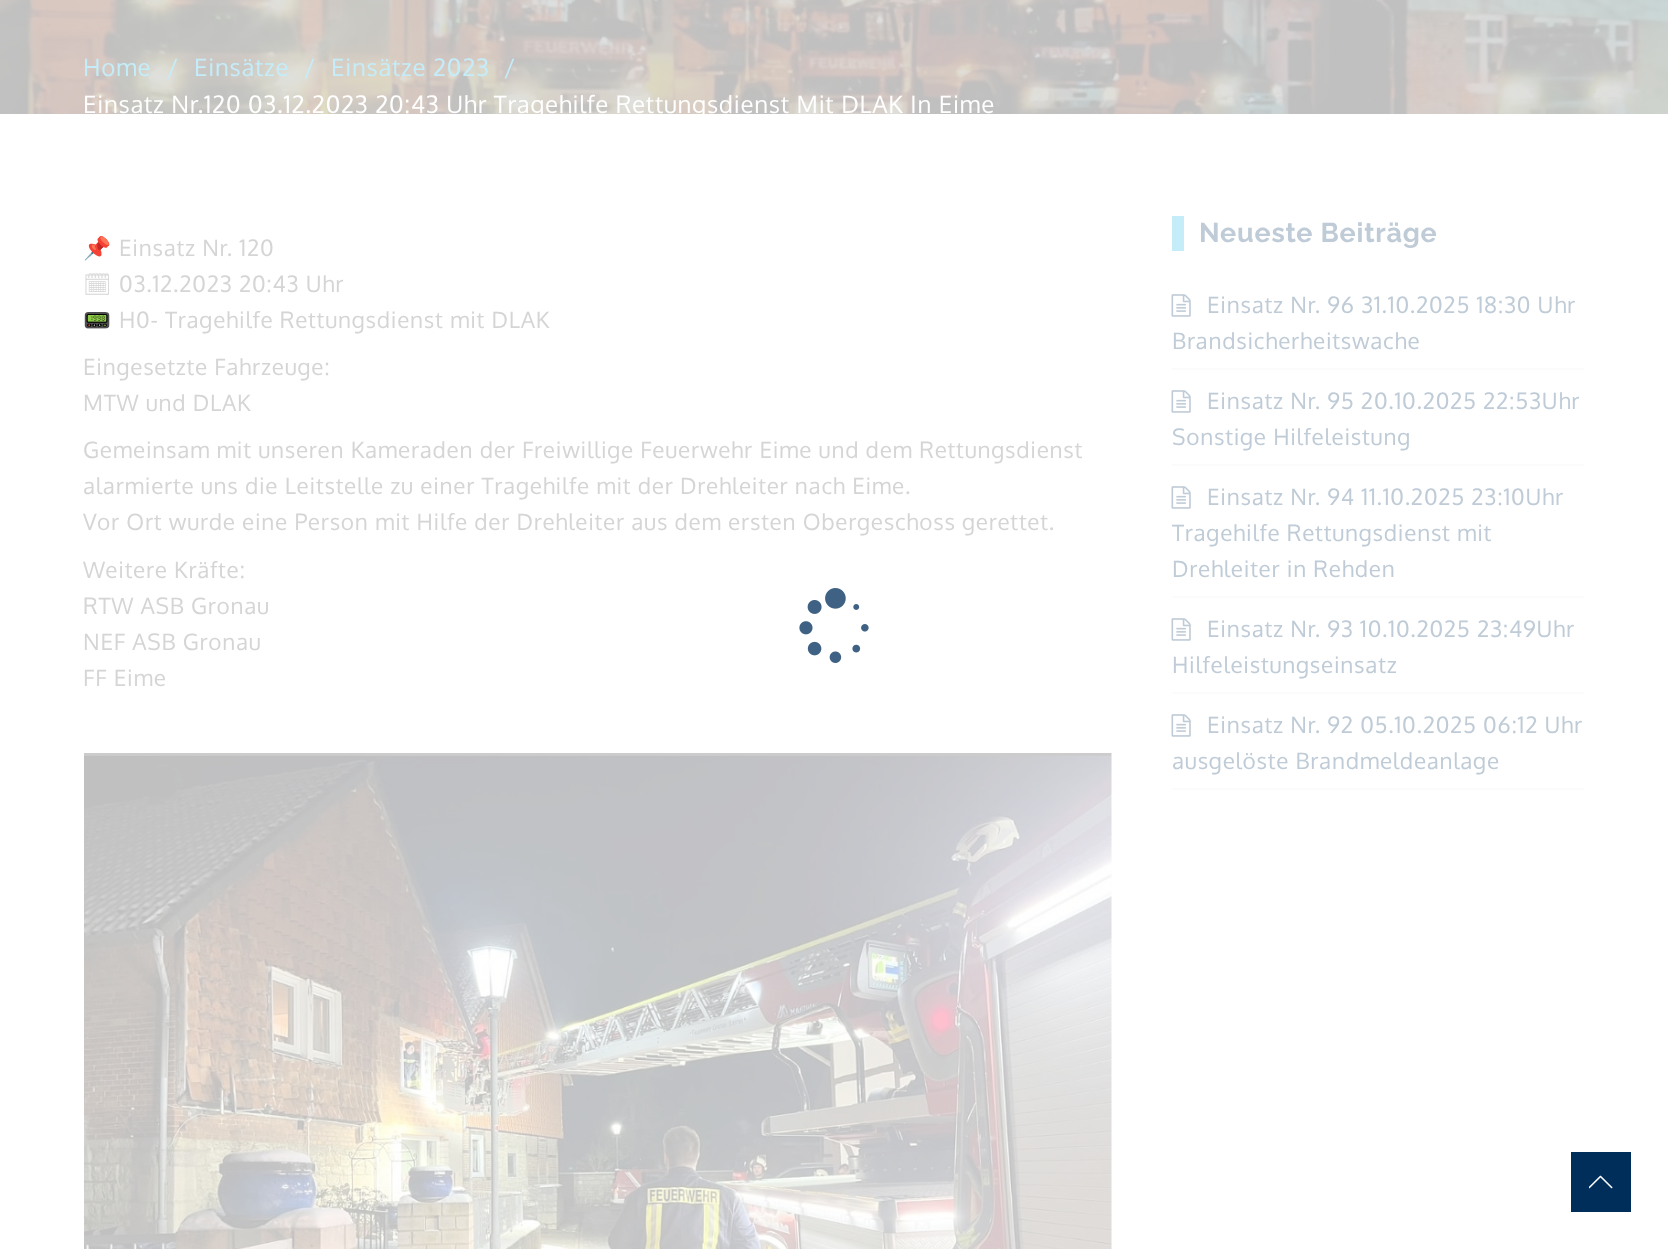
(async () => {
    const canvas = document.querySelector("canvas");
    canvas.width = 1668;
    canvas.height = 1249;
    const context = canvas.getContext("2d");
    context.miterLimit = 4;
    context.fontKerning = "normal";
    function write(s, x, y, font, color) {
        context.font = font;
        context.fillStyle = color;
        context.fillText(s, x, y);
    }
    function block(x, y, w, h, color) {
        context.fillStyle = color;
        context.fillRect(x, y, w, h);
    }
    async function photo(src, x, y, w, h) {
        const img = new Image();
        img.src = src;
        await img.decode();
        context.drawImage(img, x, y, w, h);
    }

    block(0, 0, 1668, 1249, "rgb(255, 255, 255)");
    await photo("media/1.png", 0, 0, 1668, 114);
    context.letterSpacing = "0.75px";
    write("Home", 83, 76, "24px Oxygen", "rgb(196, 237, 249)");
    write("/", 167, 76, "24px Oxygen", "rgb(196, 237, 249)");
    write("Einsätze", 194, 76, "24px Oxygen", "rgb(196, 237, 249)");
    write("/", 304, 76, "24px Oxygen", "rgb(196, 237, 249)");
    write("Einsätze 2023", 331, 76, "24px Oxygen", "rgb(196, 237, 249)");
    write("/", 504, 76, "24px Oxygen", "rgb(196, 237, 249)");
    write("Einsatz Nr.120 03.12.2023 20:43 Uhr Tragehilfe Rettungsdienst Mit DLAK In Eime", 83, 113, "24px Oxygen", "rgb(255, 255, 255)");
    write("📌", 83, 256, "22.5px Noto Color Emoji", "rgb(213, 213, 213)");
    write("Einsatz Nr. 120", 119, 256, "22.5px Oxygen", "rgb(213, 213, 213)");
    write("🗓", 83, 292, "22.5px Noto Emoji", "rgb(213, 213, 213)");
    write("03.12.2023 20:43 Uhr", 119, 292, "22.5px Oxygen", "rgb(213, 213, 213)");
    write("📟", 83, 328, "22.5px Noto Color Emoji", "rgb(213, 213, 213)");
    write("H0- Tragehilfe Rettungsdienst mit DLAK", 119, 328, "22.5px Oxygen", "rgb(213, 213, 213)");
    write("Eingesetzte Fahrzeuge:", 83, 375, "22.5px Oxygen", "rgb(213, 213, 213)");
    write("MTW und DLAK", 83, 411, "22.5px Oxygen", "rgb(213, 213, 213)");
    write("Gemeinsam mit unseren Kameraden der Freiwillige Feuerwehr Eime und dem Rettungsdienst", 83, 458, "22.5px Oxygen", "rgb(213, 213, 213)");
    write("alarmierte uns die Leitstelle zu einer Tragehilfe mit der Drehleiter nach Eime.", 83, 494, "22.5px Oxygen", "rgb(213, 213, 213)");
    write("Vor Ort wurde eine Person mit Hilfe der Drehleiter aus dem ersten Obergeschoss gerettet.", 83, 530, "22.5px Oxygen", "rgb(213, 213, 213)");
    write("Weitere Kräfte:", 83, 578, "22.5px Oxygen", "rgb(213, 213, 213)");
    write("RTW ASB Gronau", 83, 614, "22.5px Oxygen", "rgb(213, 213, 213)");
    write("NEF ASB Gronau", 83, 650, "22.5px Oxygen", "rgb(213, 213, 213)");
    write("FF Eime", 83, 686, "22.5px Oxygen", "rgb(213, 213, 213)");
    await photo("media/2.png", 84, 753, 1028, 496);
    block(1172, 216, 12, 35, "rgb(196, 237, 249)");
    write("Neueste Beiträge", 1199, 242, "bold 27px Raleway", "rgb(191, 203, 214)");
    block(1172, 368, 412, 2, "rgb(251, 251, 251)");
    await photo("media/3.png", 1171, 294, 20, 23);
    write("Einsatz Nr. 96 31.10.2025 18:30 Uhr", 1207, 313, "22.5px Oxygen", "rgb(191, 203, 214)");
    write("Brandsicherheitswache", 1172, 349, "22.5px Oxygen", "rgb(191, 203, 214)");
    block(1172, 464, 412, 2, "rgb(251, 251, 251)");
    await photo("media/3.png", 1171, 390, 20, 23);
    write("Einsatz Nr. 95 20.10.2025 22:53Uhr", 1207, 409, "22.5px Oxygen", "rgb(191, 203, 214)");
    write("Sonstige Hilfeleistung", 1172, 445, "22.5px Oxygen", "rgb(191, 203, 214)");
    block(1172, 596, 412, 2, "rgb(251, 251, 251)");
    await photo("media/3.png", 1171, 486, 20, 23);
    write("Einsatz Nr. 94 11.10.2025 23:10Uhr", 1207, 505, "22.5px Oxygen", "rgb(191, 203, 214)");
    write("Tragehilfe Rettungsdienst mit", 1172, 541, "22.5px Oxygen", "rgb(191, 203, 214)");
    write("Drehleiter in Rehden", 1172, 577, "22.5px Oxygen", "rgb(191, 203, 214)");
    block(1172, 692, 412, 2, "rgb(251, 251, 251)");
    await photo("media/3.png", 1171, 618, 20, 23);
    write("Einsatz Nr. 93 10.10.2025 23:49Uhr", 1207, 637, "22.5px Oxygen", "rgb(191, 203, 214)");
    write("Hilfeleistungseinsatz", 1172, 673, "22.5px Oxygen", "rgb(191, 203, 214)");
    block(1172, 788, 412, 2, "rgb(251, 251, 251)");
    await photo("media/3.png", 1171, 714, 20, 23);
    write("Einsatz Nr. 92 05.10.2025 06:12 Uhr", 1207, 733, "22.5px Oxygen", "rgb(191, 203, 214)");
    write("ausgelöste Brandmeldeanlage", 1172, 769, "22.5px Oxygen", "rgb(191, 203, 214)");
    await photo("media/4.png", 799, 588, 70, 75);
    block(1571, 1152, 60, 60, "rgb(0, 46, 91)");
    await photo("media/5.png", 1589, 1175, 24, 14);
})();
